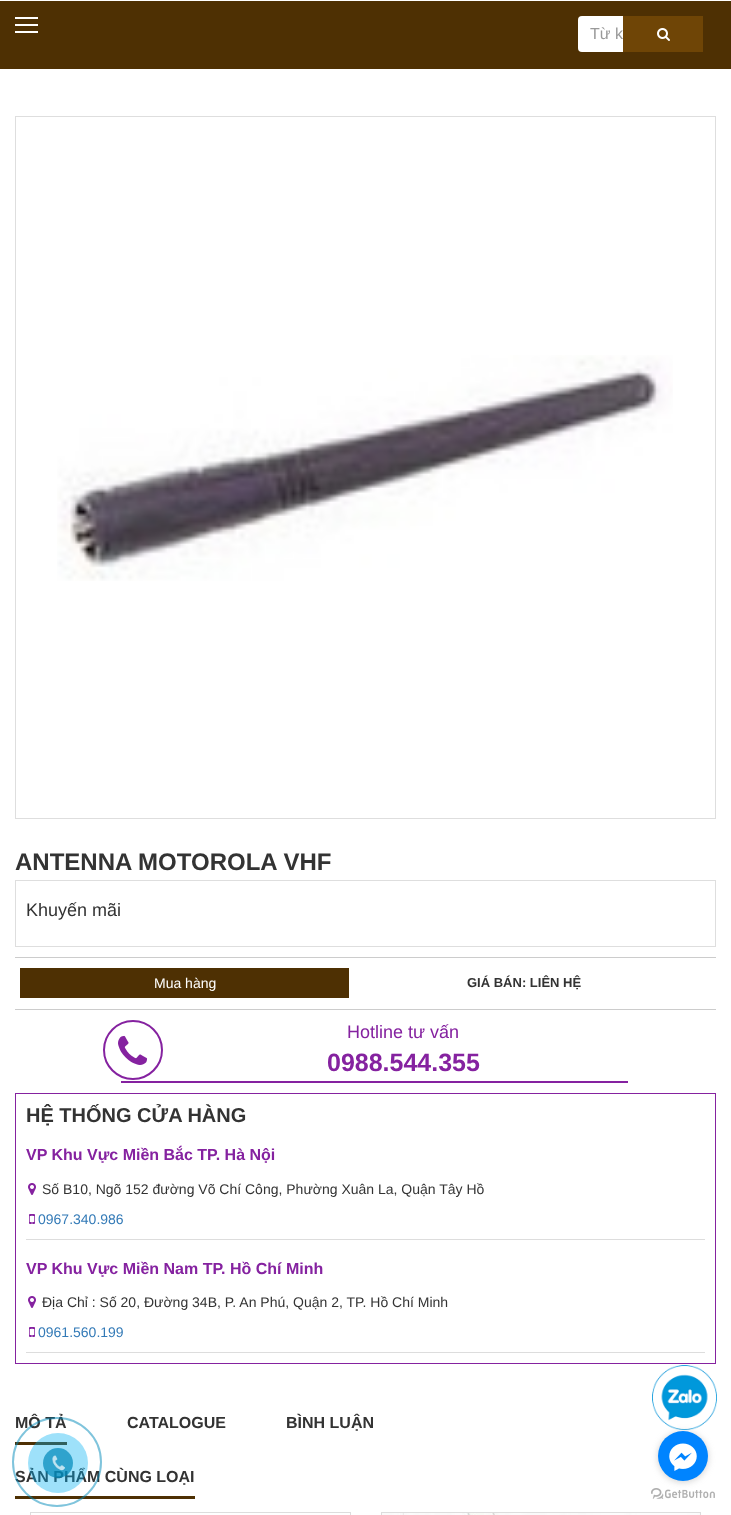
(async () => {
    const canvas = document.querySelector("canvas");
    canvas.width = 731;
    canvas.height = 1515;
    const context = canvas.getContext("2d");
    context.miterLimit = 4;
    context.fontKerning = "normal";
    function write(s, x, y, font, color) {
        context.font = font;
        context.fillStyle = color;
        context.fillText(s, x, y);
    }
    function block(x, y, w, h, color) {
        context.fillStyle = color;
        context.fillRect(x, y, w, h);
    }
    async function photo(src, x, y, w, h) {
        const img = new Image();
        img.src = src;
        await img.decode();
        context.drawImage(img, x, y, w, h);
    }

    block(0, 0, 731, 1515, "rgb(255, 255, 255)");
    block(0, 1, 731, 68, "rgb(78, 48, 3)");
    block(15, 24, 23, 2, "rgb(255, 255, 255)");
    block(15, 17, 23, 2, "rgb(255, 255, 255)");
    block(15, 31, 23, 2, "rgb(255, 255, 255)");
    context.beginPath();
    context.roundRect(578, 16, 123, 36, [4, 0, 0, 4]);
    context.fill();
    write("Từ k", 590, 39, "16px Liberation Sans", "rgb(153, 153, 153)");
    block(623, 16, 80, 36, "rgb(111, 69, 6)");
    await photo("media/1.png", 657, 28, 13, 13);
    context.strokeStyle = "rgb(222, 222, 222)";
    context.strokeRect(15.5, 116.5, 700, 702);
    await photo("media/2.png", 57, 355, 616, 226);
    write("ANTENNA MOTOROLA VHF", 15, 870, "bold 24px Liberation Sans", "rgb(51, 51, 51)");
    context.strokeRect(15.5, 880.5, 700, 66);
    write("Khuyến mãi", 26, 916, "18px Liberation Sans", "rgb(51, 51, 51)");
    block(15, 957, 701, 1, "rgb(204, 204, 204)");
    block(15, 1009, 701, 1, "rgb(204, 204, 204)");
    block(20, 968, 329, 30, "rgb(78, 48, 3)");
    write("Mua hàng", 154, 988, "14px Liberation Sans", "rgb(255, 255, 255)");
    write("GIÁ BÁN: LIÊN HỆ", 467, 987, "bold 13px Liberation Sans", "rgb(51, 51, 51)");
    block(121, 1081, 507, 2, "rgb(133, 34, 160)");
    context.beginPath();
    context.arc(133, 1050, 29, 0, Math.PI * 2);
    context.strokeStyle = "rgb(133, 34, 160)";
    context.lineWidth = 2;
    context.stroke();
    await photo("media/3.png", 118, 1035, 30, 30);
    write("Hotline tư vấn", 347, 1038, "18px Liberation Sans", "rgb(133, 34, 160)");
    write("0988.544.355", 327, 1071, "bold 25px Liberation Sans", "rgb(133, 34, 160)");
    context.lineWidth = 1;
    context.strokeRect(15.5, 1093.5, 700, 270);
    write("HỆ THỐNG CỬA HÀNG", 26, 1122, "bold 20px Liberation Sans", "rgb(51, 51, 51)");
    block(26, 1239, 679, 1, "rgb(221, 221, 221)");
    write("VP Khu Vực Miền Bắc TP. Hà Nội", 26, 1160, "bold 16px Liberation Sans", "rgb(133, 34, 160)");
    await photo("media/4.png", 28, 1183, 8, 12);
    write("Số B10, Ngõ 152 đường Võ Chí Công, Phường Xuân La, Quận Tây Hồ", 42, 1194, "14px Liberation Sans", "rgb(51, 51, 51)");
    await photo("media/5.png", 29, 1214, 6, 10);
    write("0967.340.986", 38, 1224, "14px Liberation Sans", "rgb(51, 122, 183)");
    block(26, 1352, 679, 1, "rgb(221, 221, 221)");
    write("VP Khu Vực Miền Nam TP. Hồ Chí Minh", 26, 1274, "bold 16px Liberation Sans", "rgb(133, 34, 160)");
    await photo("media/4.png", 28, 1296, 8, 12);
    write("Địa Chỉ : Số 20, Đường 34B, P. An Phú, Quận 2, TP. Hồ Chí Minh", 42, 1307, "14px Liberation Sans", "rgb(51, 51, 51)");
    await photo("media/5.png", 29, 1327, 6, 10);
    write("0961.560.199", 38, 1337, "14px Liberation Sans", "rgb(51, 122, 183)");
    write("MÔ TẢ", 15, 1428, "bold 16px Liberation Sans", "rgb(51, 51, 51)");
    block(15, 1442, 52, 3, "rgb(78, 48, 3)");
    write("CATALOGUE", 127, 1428, "bold 16px Liberation Sans", "rgb(51, 51, 51)");
    write("BÌNH LUẬN", 286, 1428, "bold 16px Liberation Sans", "rgb(51, 51, 51)");
    write("SẢN PHẨM CÙNG LOẠI", 15, 1482, "bold 16px Liberation Sans", "rgb(51, 51, 51)");
    block(15, 1496, 180, 3, "rgb(78, 48, 3)");
    context.strokeStyle = "rgb(221, 221, 221)";
    context.strokeRect(30.5, 1512.5, 320, 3);
    context.strokeRect(381.5, 1512.5, 319, 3);
    await photo("media/6.png", 382, 1513, 318, 2);
    await photo("media/7.png", 652, 1365, 65, 65);
    context.beginPath();
    context.arc(57, 1462, 44, 0, Math.PI * 2);
    context.strokeStyle = "rgba(0, 137, 185, 0.5)";
    context.lineWidth = 2;
    context.stroke();
    context.fillStyle = "rgba(0, 175, 242, 0.38)";
    context.beginPath();
    context.arc(58, 1463, 30, 0, Math.PI * 2);
    context.fill();
    context.fillStyle = "rgba(0, 137, 185, 0.7)";
    context.beginPath();
    context.arc(58, 1463, 15, 0, Math.PI * 2);
    context.fill();
    await photo("media/8.png", 52, 1455, 13, 16);
    await photo("media/10.png", 651, 1488, 64, 11);
    context.fillStyle = "rgba(136, 136, 136, 0.4)";
    context.filter = "blur(3.5px)";
    context.beginPath();
    context.roundRect(658, 1432, 50, 50, 25);
    context.fill();
    context.filter = "none";
    context.fillStyle = "rgb(0, 132, 255)";
    context.beginPath();
    context.arc(683, 1456, 25, 0, Math.PI * 2);
    context.fill();
    await photo("media/9.png", 669, 1443, 28, 28);
})();
